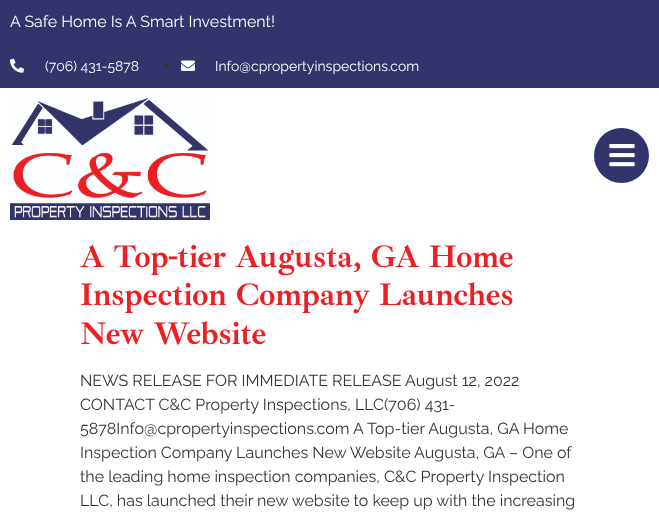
(async () => {
    const canvas = document.querySelector("canvas");
    canvas.width = 659;
    canvas.height = 517;
    const context = canvas.getContext("2d");
    context.miterLimit = 4;
    context.fontKerning = "normal";
    function write(s, x, y, font, color) {
        context.font = font;
        context.fillStyle = color;
        context.fillText(s, x, y);
    }
    function block(x, y, w, h, color) {
        context.fillStyle = color;
        context.fillRect(x, y, w, h);
    }
    async function photo(src, x, y, w, h) {
        const img = new Image();
        img.src = src;
        await img.decode();
        context.drawImage(img, x, y, w, h);
    }

    block(0, 0, 659, 517, "rgb(255, 255, 255)");
    block(0, 0, 659, 88, "rgb(50, 52, 107)");
    write("A Safe Home Is A Smart Investment!", 10, 27, "16px Raleway", "rgb(255, 255, 255)");
    await photo("media/1.png", 10, 58, 14, 15);
    write("(706) 431-5878", 45, 71, "14px Raleway", "rgb(255, 255, 255)");
    context.fillStyle = "rgb(51, 51, 51)";
    context.beginPath();
    context.arc(166.5, 65.5, 2.5, 0, Math.PI * 2);
    context.fill();
    await photo("media/2.png", 181, 60, 14, 11);
    write("Info@cpropertyinspections.com", 215, 71, "14px Raleway", "rgb(255, 255, 255)");
    await photo("media/3.png", 10, 98, 200, 122);
    context.fillStyle = "rgb(50, 52, 107)";
    context.beginPath();
    context.arc(621.5, 155.5, 27.5, 0, Math.PI * 2);
    context.fill();
    await photo("media/4.png", 609, 144, 26, 23);
    write("A Top-tier Augusta, GA Home", 80, 267, "bold 32px Ibarra Real Nova", "rgb(236, 31, 37)");
    write("Inspection Company Launches", 80, 305, "bold 32px Ibarra Real Nova", "rgb(236, 31, 37)");
    write("New Website", 80, 344, "bold 32px Ibarra Real Nova", "rgb(236, 31, 37)");
    write("NEWS RELEASE FOR IMMEDIATE RELEASE August 12, 2022", 80, 386, "16px Raleway", "rgb(51, 51, 51)");
    write("CONTACT C&C Property Inspections, LLC(706) 431-", 80, 410, "16px Raleway", "rgb(51, 51, 51)");
    write("5878Info@cpropertyinspections.com A Top-tier Augusta, GA Home", 80, 434, "16px Raleway", "rgb(51, 51, 51)");
    write("Inspection Company Launches New Website Augusta, GA – One of", 80, 458, "16px Raleway", "rgb(51, 51, 51)");
    write("the leading home inspection companies, C&C Property Inspection", 80, 482, "16px Raleway", "rgb(51, 51, 51)");
    write("LLC, has launched their new website to keep up with the increasing", 80, 506, "16px Raleway", "rgb(51, 51, 51)");
})();
